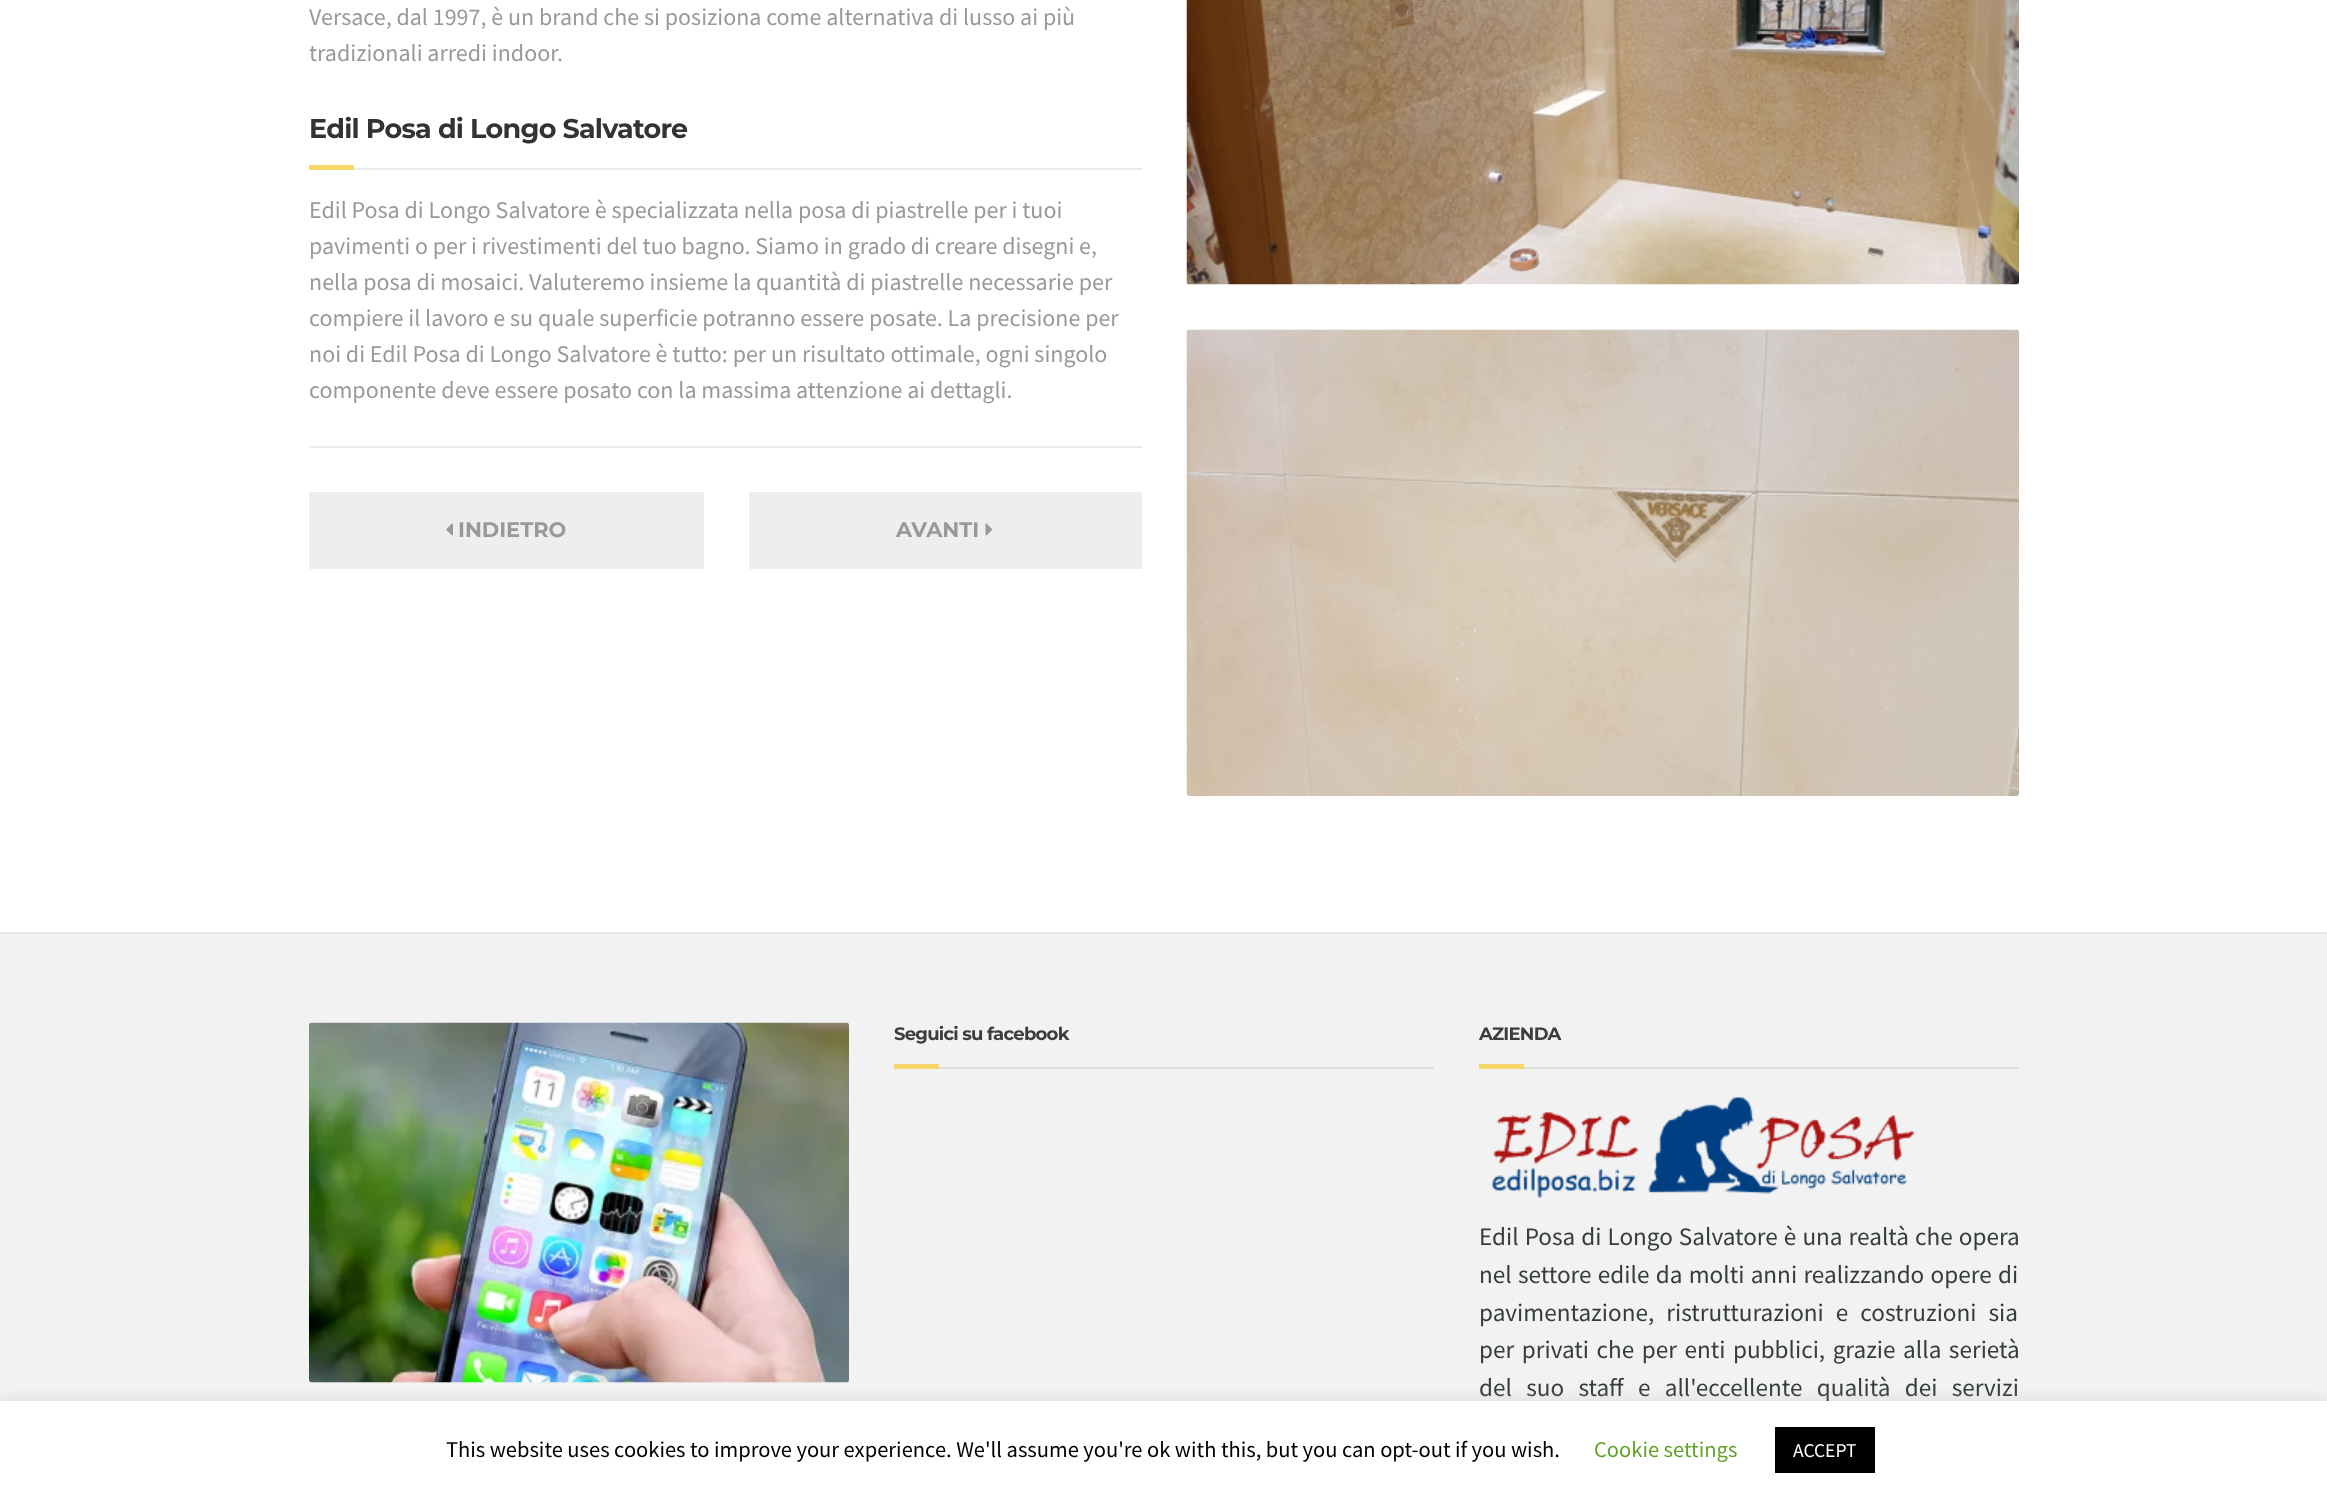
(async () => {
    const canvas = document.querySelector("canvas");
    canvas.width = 2327;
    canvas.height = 1498;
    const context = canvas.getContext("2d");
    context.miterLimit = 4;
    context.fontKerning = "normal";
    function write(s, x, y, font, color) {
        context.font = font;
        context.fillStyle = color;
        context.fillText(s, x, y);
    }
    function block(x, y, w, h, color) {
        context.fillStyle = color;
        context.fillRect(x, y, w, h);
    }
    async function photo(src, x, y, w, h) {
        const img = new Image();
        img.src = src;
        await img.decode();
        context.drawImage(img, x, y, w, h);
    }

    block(0, 0, 2327, 1498, "rgb(255, 255, 255)");
    block(309, 446, 833, 2, "rgb(235, 235, 235)");
    write("Versace, dal 1997, è un brand che si posiziona come alternativa di lusso ai più", 309, 25, "24px Source Sans Pro", "rgb(153, 153, 153)");
    write("tradizionali arredi indoor.", 309, 61, "24px Source Sans Pro", "rgb(153, 153, 153)");
    block(354, 168, 788, 2, "rgb(235, 235, 235)");
    context.letterSpacing = "-0.75px";
    write("Edil Posa di Longo Salvatore", 309, 138, "100 27px Montserrat", "rgb(51, 51, 51)");
    block(309, 165, 45, 5, "rgb(247, 214, 106)");
    context.letterSpacing = "0px";
    write("Edil Posa di Longo Salvatore è specializzata nella posa di piastrelle per i tuoi", 309, 218, "24px Source Sans Pro", "rgb(153, 153, 153)");
    write("pavimenti o per i rivestimenti del tuo bagno. Siamo in grado di creare disegni e,", 309, 254, "24px Source Sans Pro", "rgb(153, 153, 153)");
    write("nella posa di mosaici. Valuteremo insieme la quantità di piastrelle necessarie per", 309, 290, "24px Source Sans Pro", "rgb(153, 153, 153)");
    write("compiere il lavoro e su quale superficie potranno essere posate. La precisione per", 309, 326, "24px Source Sans Pro", "rgb(153, 153, 153)");
    write("noi di Edil Posa di Longo Salvatore è tutto: per un risultato ottimale, ogni singolo", 309, 362, "24px Source Sans Pro", "rgb(153, 153, 153)");
    write("componente deve essere posato con la massima attenzione ai dettagli.", 309, 398, "24px Source Sans Pro", "rgb(153, 153, 153)");
    block(309, 492, 395, 77, "rgb(238, 238, 238)");
    await photo("media/1.png", 446, 523, 7, 13);
    write("INDIETRO", 458, 537, "100 21px Montserrat", "rgb(153, 153, 153)");
    block(749, 492, 393, 77, "rgb(238, 238, 238)");
    write("AVANTI", 896, 537, "100 21px Montserrat", "rgb(153, 153, 153)");
    await photo("media/2.png", 985, 523, 8, 13);
    await photo("media/3.png", 1186, 0, 833, 285);
    await photo("media/4.png", 1186, 329, 833, 467);
    block(0, 934, 2327, 467, "rgb(242, 242, 242)");
    block(0, 932, 2327, 2, "rgb(230, 230, 230)");
    await photo("media/5.png", 309, 1022, 540, 361);
    block(939, 1067, 495, 2, "rgb(223, 223, 223)");
    context.letterSpacing = "-0.75px";
    write("Seguici su facebook", 894, 1040, "100 18px Montserrat", "rgb(61, 61, 61)");
    block(894, 1064, 45, 5, "rgb(247, 214, 106)");
    block(1524, 1067, 495, 2, "rgb(223, 223, 223)");
    write("AZIENDA", 1479, 1040, "100 18px Montserrat", "rgb(61, 61, 61)");
    block(1479, 1064, 45, 5, "rgb(247, 214, 106)");
    await photo("media/6.png", 1492, 1097, 423, 102);
    context.letterSpacing = "0px";
    context.wordSpacing = "1px";
    write("Edil Posa di Longo Salvatore è una realtà che opera", 1479, 1245, "25.2px Source Sans Pro", "rgb(53, 61, 60)");
    context.wordSpacing = "1.25px";
    write("nel settore edile da molti anni realizzando opere di", 1479, 1283, "25.2px Source Sans Pro", "rgb(53, 61, 60)");
    context.wordSpacing = "7px";
    write("pavimentazione, ristrutturazioni e costruzioni sia", 1479, 1321, "25.2px Source Sans Pro", "rgb(53, 61, 60)");
    context.wordSpacing = "2.5px";
    write("per privati che per enti pubblici, grazie alla serietà", 1479, 1358, "25.2px Source Sans Pro", "rgb(53, 61, 60)");
    context.wordSpacing = "9.25px";
    write("del suo staff e all'eccellente qualità dei servizi", 1479, 1396, "25.2px Source Sans Pro", "rgb(53, 61, 60)");
    context.fillStyle = "rgba(172, 171, 171, 0.3)";
    context.filter = "blur(7.5px)";
    context.beginPath();
    context.rect(0, 1400, 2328, 97);
    context.fill();
    context.filter = "none";
    block(0, 1401, 2327, 97, "rgb(255, 255, 255)");
    context.wordSpacing = "0px";
    write("This website uses cookies to improve your experience. We'll assume you're ok with this, but you can opt-out if you wish.", 446, 1457, "22.5px Source Sans Pro", "rgb(0, 0, 0)");
    write("Cookie settings", 1594, 1457, "22.5px Source Sans Pro", "rgb(98, 163, 41)");
    block(1775, 1427, 100, 46, "rgb(0, 0, 0)");
    write("ACCEPT", 1793, 1457, "19.5px Source Sans Pro", "rgb(255, 255, 255)");
})();
